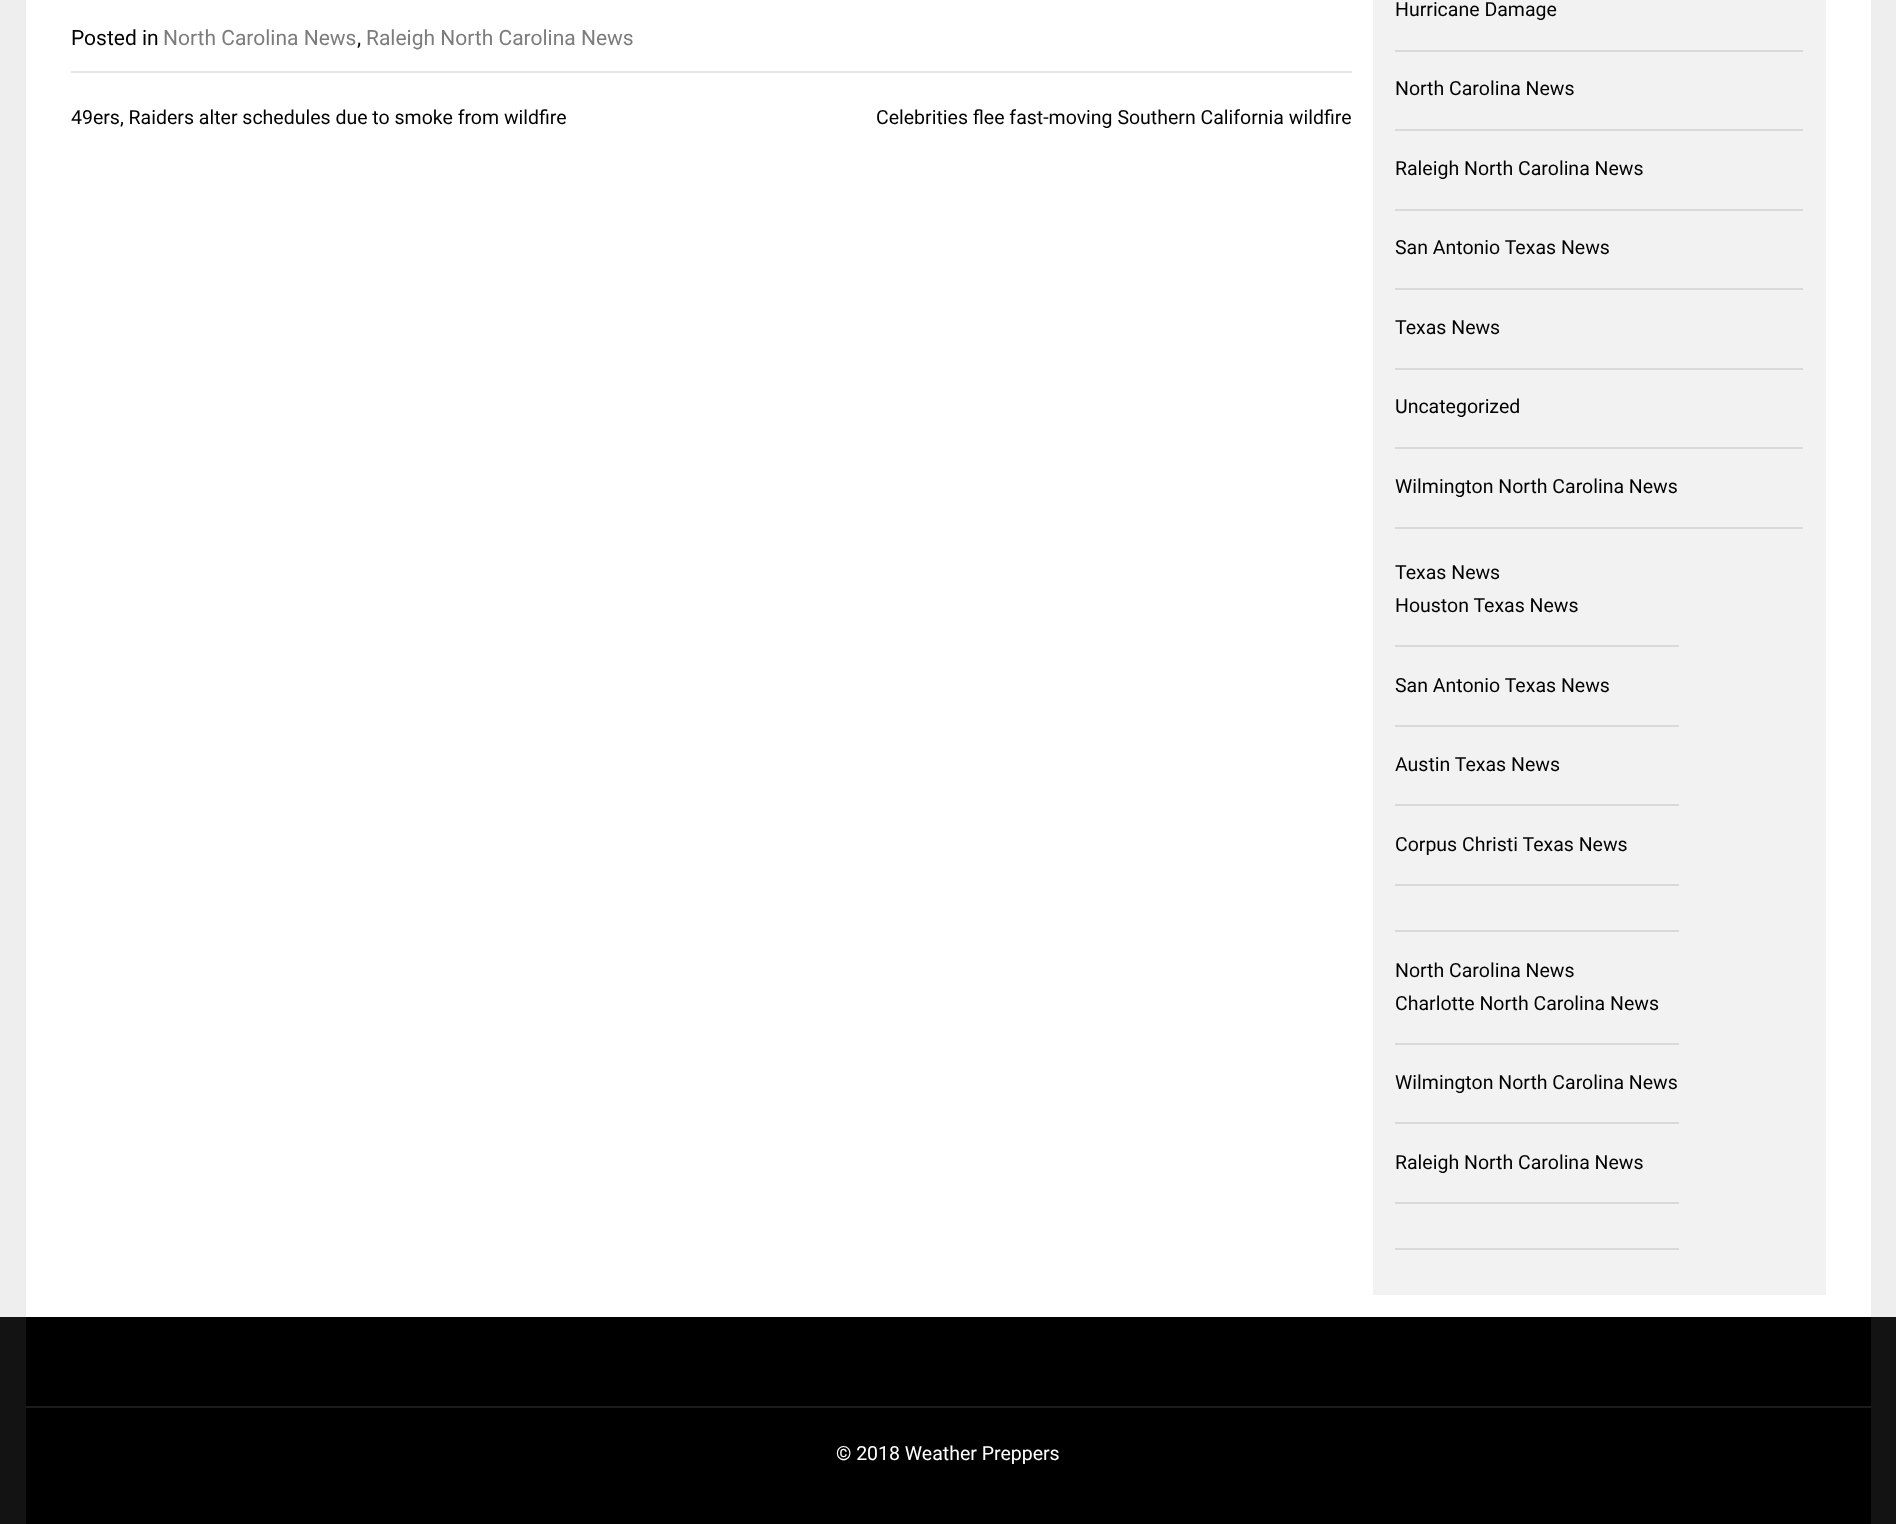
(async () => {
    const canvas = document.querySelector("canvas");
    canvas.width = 1896;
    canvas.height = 1524;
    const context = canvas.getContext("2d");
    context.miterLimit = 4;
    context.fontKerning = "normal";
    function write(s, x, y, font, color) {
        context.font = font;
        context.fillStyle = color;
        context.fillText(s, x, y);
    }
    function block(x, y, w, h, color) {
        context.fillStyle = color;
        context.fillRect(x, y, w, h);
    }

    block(0, 0, 1896, 1524, "rgb(238, 238, 239)");
    block(26, 0, 1845, 1317, "rgb(255, 255, 255)");
    block(71, 71, 1281, 2, "rgb(229, 229, 229)");
    write("Posted in", 71, 45, "21px Roboto", "rgb(0, 0, 0)");
    write("North Carolina News", 163, 45, "21px Roboto", "rgb(124, 124, 124)");
    write(",", 357, 45, "21px Roboto", "rgb(0, 0, 0)");
    write("Raleigh North Carolina News", 366, 45, "21px Roboto", "rgb(124, 124, 124)");
    write("49ers, Raiders alter schedules due to smoke from wildfire", 71, 124, "19.5px Roboto", "rgb(0, 0, 0)");
    write("Celebrities flee fast-moving Southern California wildfire", 876, 124, "19.5px Roboto", "rgb(0, 0, 0)");
    block(1373, 0, 453, 1295, "rgb(242, 242, 242)");
    block(1395, 50, 408, 2, "rgb(217, 217, 217)");
    write("Hurricane Damage", 1395, 16, "19.5px Roboto", "rgb(0, 0, 0)");
    block(1395, 129, 408, 2, "rgb(217, 217, 217)");
    write("North Carolina News", 1395, 95, "19.5px Roboto", "rgb(0, 0, 0)");
    block(1395, 209, 408, 2, "rgb(217, 217, 217)");
    write("Raleigh North Carolina News", 1395, 175, "19.5px Roboto", "rgb(0, 0, 0)");
    block(1395, 288, 408, 2, "rgb(217, 217, 217)");
    write("San Antonio Texas News", 1395, 254, "19.5px Roboto", "rgb(0, 0, 0)");
    block(1395, 368, 408, 2, "rgb(217, 217, 217)");
    write("Texas News", 1395, 334, "19.5px Roboto", "rgb(0, 0, 0)");
    block(1395, 447, 408, 2, "rgb(217, 217, 217)");
    write("Uncategorized", 1395, 413, "19.5px Roboto", "rgb(0, 0, 0)");
    block(1395, 527, 408, 2, "rgb(217, 217, 217)");
    write("Wilmington North Carolina News", 1395, 493, "19.5px Roboto", "rgb(0, 0, 0)");
    block(1395, 930, 284, 2, "rgb(217, 217, 217)");
    write("Texas News", 1395, 579, "19.5px Roboto", "rgb(0, 0, 0)");
    block(1395, 645, 284, 2, "rgb(217, 217, 217)");
    write("Houston Texas News", 1395, 612, "19.5px Roboto", "rgb(0, 0, 0)");
    block(1395, 725, 284, 2, "rgb(217, 217, 217)");
    write("San Antonio Texas News", 1395, 692, "19.5px Roboto", "rgb(0, 0, 0)");
    block(1395, 804, 284, 2, "rgb(217, 217, 217)");
    write("Austin Texas News", 1395, 771, "19.5px Roboto", "rgb(0, 0, 0)");
    block(1395, 884, 284, 2, "rgb(217, 217, 217)");
    write("Corpus Christi Texas News", 1395, 851, "19.5px Roboto", "rgb(0, 0, 0)");
    block(1395, 1248, 284, 2, "rgb(217, 217, 217)");
    write("North Carolina News", 1395, 977, "19.5px Roboto", "rgb(0, 0, 0)");
    block(1395, 1043, 284, 2, "rgb(217, 217, 217)");
    write("Charlotte North Carolina News", 1395, 1010, "19.5px Roboto", "rgb(0, 0, 0)");
    block(1395, 1122, 284, 2, "rgb(217, 217, 217)");
    write("Wilmington North Carolina News", 1395, 1089, "19.5px Roboto", "rgb(0, 0, 0)");
    block(1395, 1202, 284, 2, "rgb(217, 217, 217)");
    write("Raleigh North Carolina News", 1395, 1169, "19.5px Roboto", "rgb(0, 0, 0)");
    block(0, 1317, 1896, 207, "rgb(19, 19, 19)");
    block(26, 1317, 1845, 207, "rgb(0, 0, 0)");
    block(26, 1406, 1845, 2, "rgb(28, 28, 28)");
    write("© 2018 Weather Preppers", 836, 1460, "19.5px Roboto", "rgb(255, 255, 255)");
})();
